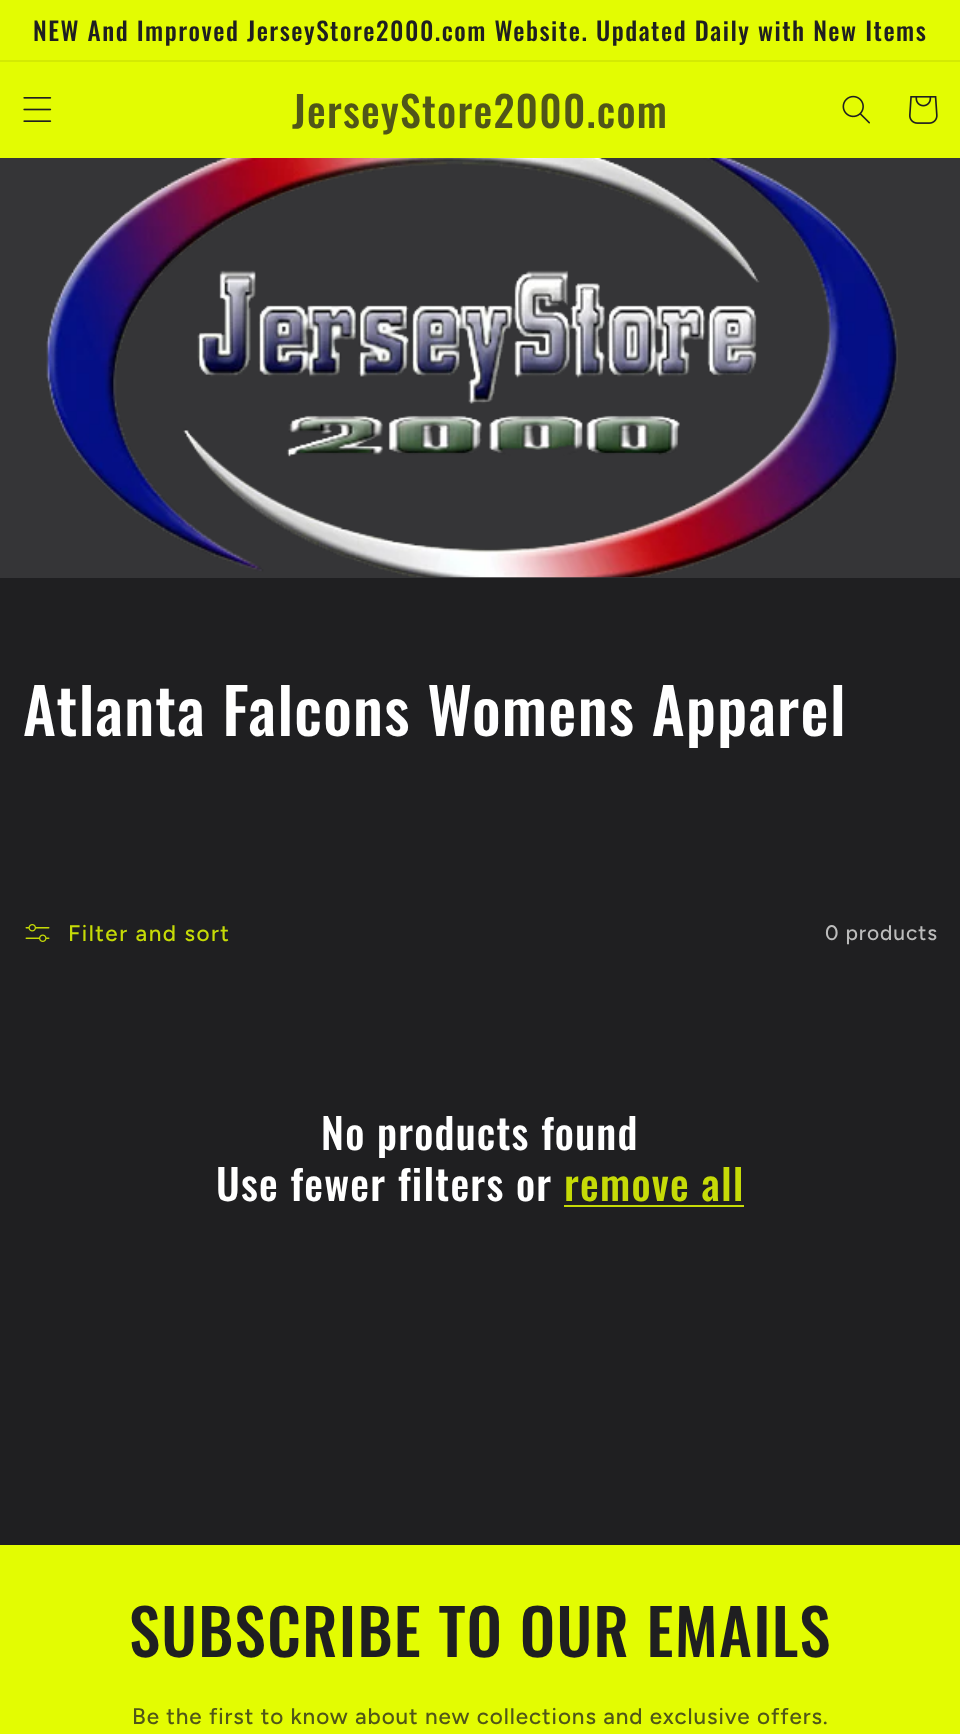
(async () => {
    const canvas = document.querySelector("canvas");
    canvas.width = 960;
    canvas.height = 1734;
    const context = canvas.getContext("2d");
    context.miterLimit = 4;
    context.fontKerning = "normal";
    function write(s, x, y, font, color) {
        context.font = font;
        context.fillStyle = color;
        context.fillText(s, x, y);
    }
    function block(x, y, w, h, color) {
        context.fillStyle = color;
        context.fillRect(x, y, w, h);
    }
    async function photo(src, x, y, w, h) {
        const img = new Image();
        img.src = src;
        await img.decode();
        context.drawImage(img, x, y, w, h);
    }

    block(0, 0, 960, 1734, "rgb(31, 31, 33)");
    block(0, 0, 960, 60, "rgb(227, 252, 2)");
    block(0, 60, 960, 2, "rgb(211, 234, 4)");
    context.letterSpacing = "1.5px";
    write("NEW And Improved JerseyStore2000.com Website. Updated Daily with New Items", 33, 41, "500 25.2px Oswald", "rgb(31, 31, 33)");
    block(0, 62, 960, 96, "rgb(227, 252, 2)");
    await photo("media/1.png", 23, 97, 29, 25);
    context.letterSpacing = "1.25px";
    write("JerseyStore2000.com", 292, 128, "500 42px Oswald", "rgb(80, 86, 25)");
    await photo("media/2.png", 842, 95, 28, 29);
    await photo("media/3.png", 909, 96, 29, 28);
    block(0, 158, 960, 420, "rgb(53, 53, 55)");
    await photo("media/4.png", 46, 158, 852, 420);
    write("Atlanta Falcons Womens Apparel", 23, 736, "500 63px Oswald", "rgb(255, 255, 255)");
    await photo("media/5.png", 25, 924, 25, 18);
    context.letterSpacing = "1.5px";
    write("Filter and sort", 68, 941, "500 22.5px Figtree", "rgb(198, 219, 7)");
    context.letterSpacing = "0.9px";
    write("0 products", 825, 940, "500 21px Figtree", "rgb(188, 188, 188)");
    context.letterSpacing = "1.25px";
    write("No products found", 321, 1150, "500 42px Oswald", "rgb(255, 255, 255)");
    write("Use fewer filters or", 216, 1201, "500 42px Oswald", "rgb(255, 255, 255)");
    write("remove all", 564, 1201, "500 42px Oswald", "rgb(198, 219, 7)");
    block(564, 1205, 180, 2, "rgb(198, 219, 7)");
    block(0, 1545, 960, 189, "rgb(227, 252, 2)");
    write("SUBSCRIBE TO OUR EMAILS", 129, 1657, "500 63px Oswald", "rgb(31, 31, 33)");
    context.letterSpacing = "0.9px";
    write("Be the first to know about new collections and exclusive offers.", 132, 1724, "500 22.5px Figtree", "rgb(80, 86, 25)");
})();
